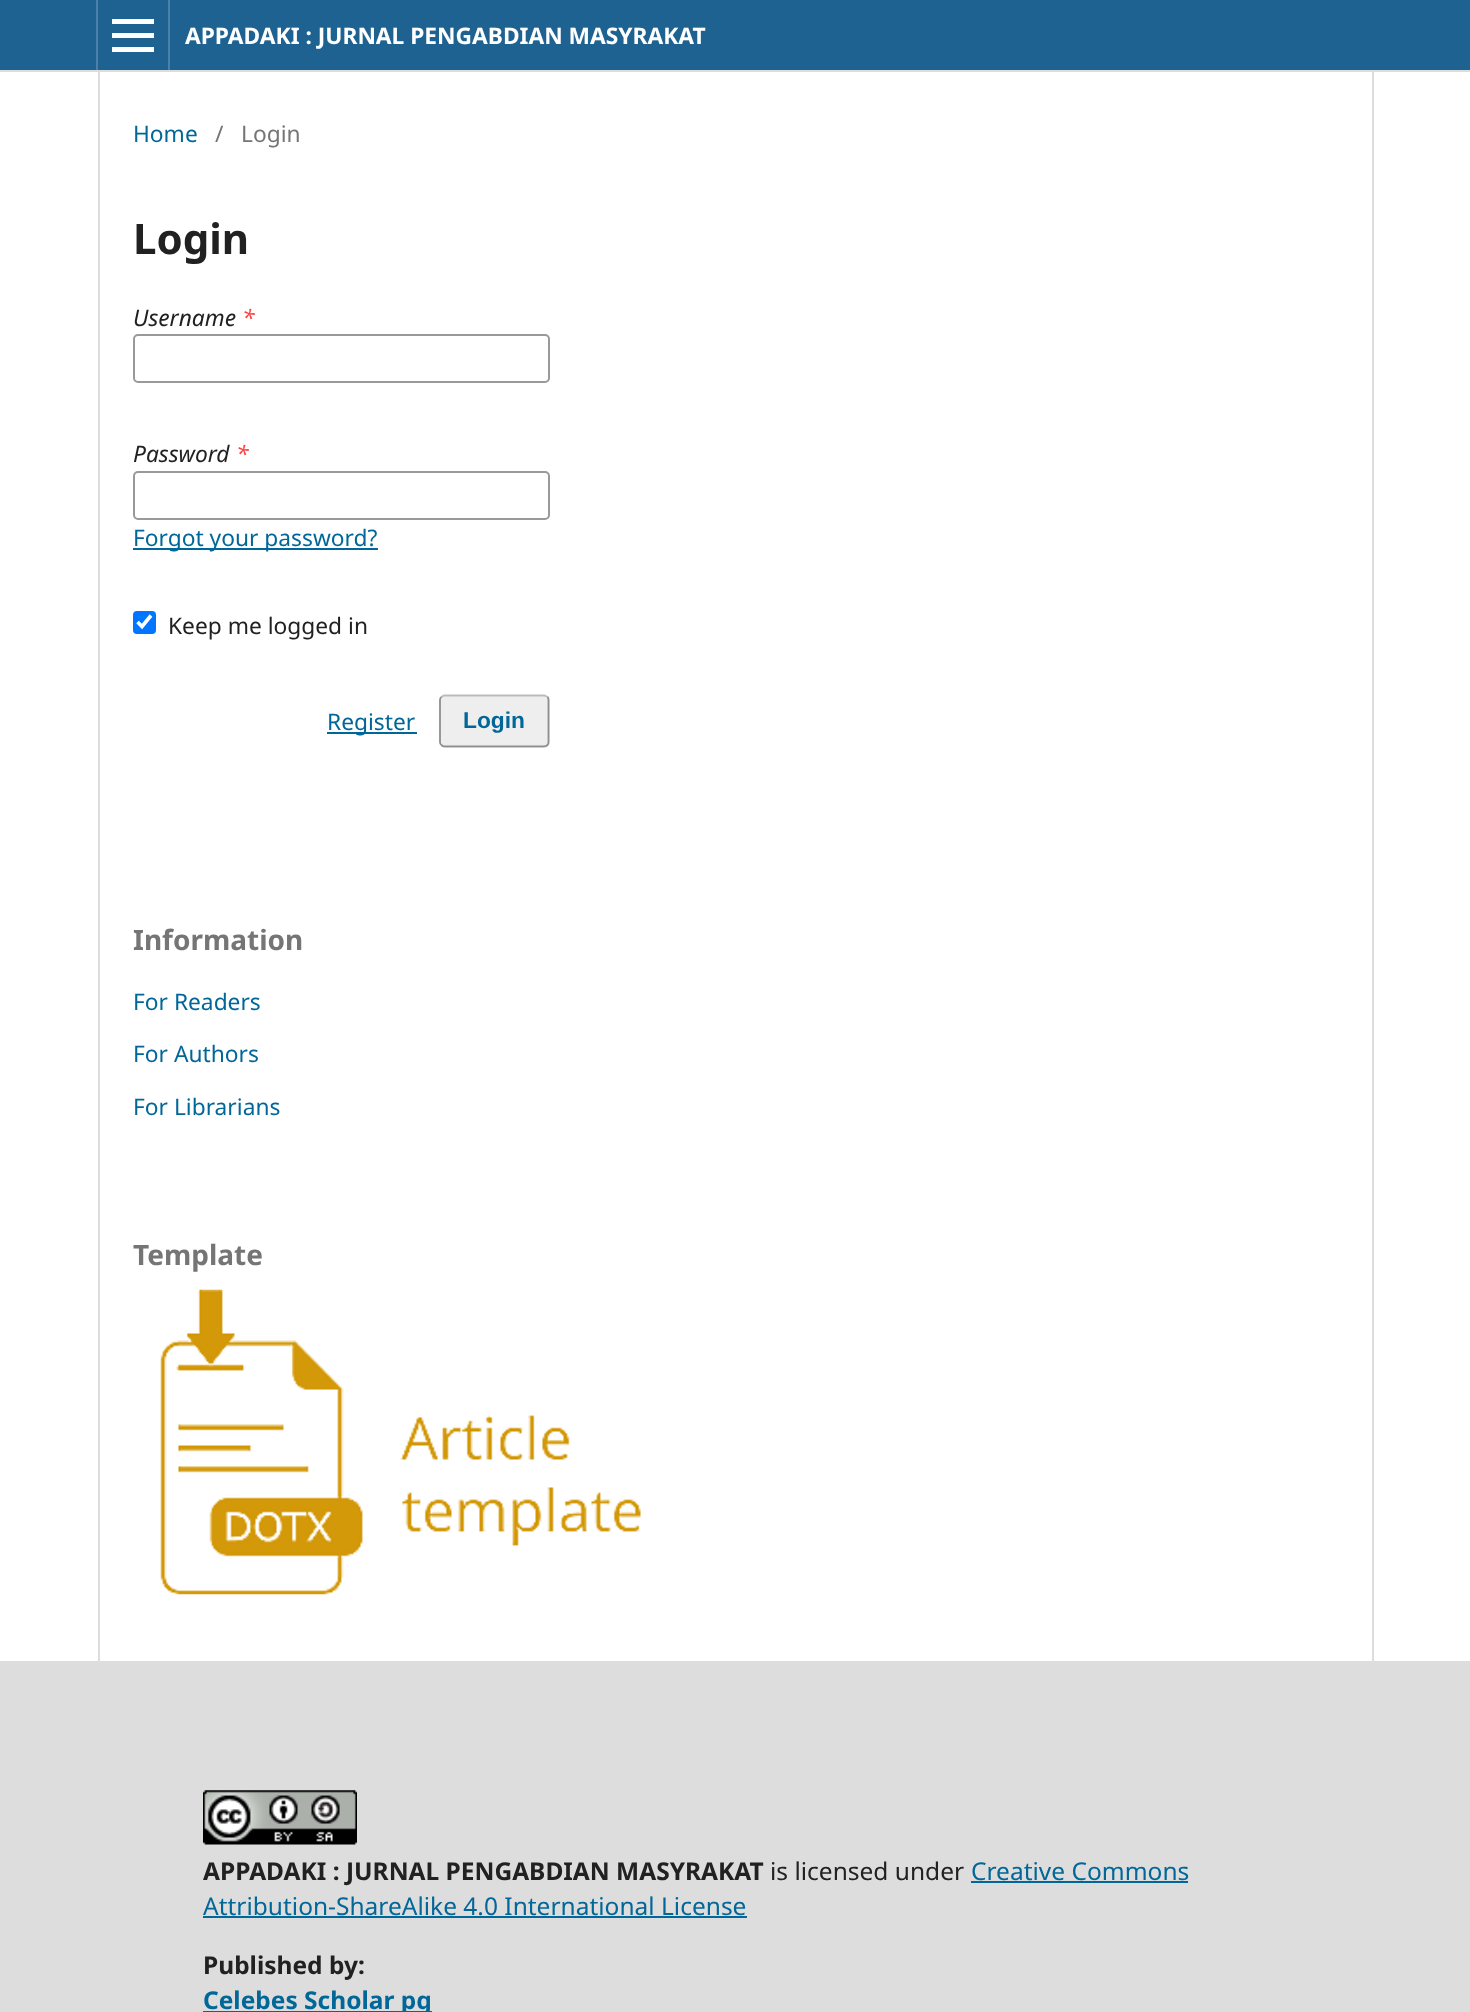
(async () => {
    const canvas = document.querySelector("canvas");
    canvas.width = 1470;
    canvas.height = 2012;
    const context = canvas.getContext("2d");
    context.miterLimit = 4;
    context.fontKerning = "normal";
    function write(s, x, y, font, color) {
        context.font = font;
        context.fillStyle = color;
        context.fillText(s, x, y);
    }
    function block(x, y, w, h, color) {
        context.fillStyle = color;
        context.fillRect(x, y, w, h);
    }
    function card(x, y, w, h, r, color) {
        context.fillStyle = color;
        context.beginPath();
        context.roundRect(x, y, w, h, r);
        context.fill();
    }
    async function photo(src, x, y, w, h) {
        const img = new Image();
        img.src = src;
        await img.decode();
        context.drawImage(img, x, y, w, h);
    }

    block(0, 0, 1470, 2012, "rgb(255, 255, 255)");
    block(0, 0, 1470, 70, "rgb(30, 98, 146)");
    block(0, 70, 1470, 2, "rgb(221, 221, 221)");
    block(96, 0, 2, 70, "rgb(75, 129, 168)");
    block(168, 0, 2, 70, "rgb(75, 129, 168)");
    block(112, 47, 42, 5, "rgb(255, 255, 255)");
    block(112, 19, 42, 5, "rgb(255, 255, 255)");
    block(112, 33, 42, 5, "rgb(255, 255, 255)");
    write("APPADAKI : JURNAL PENGABDIAN MASYRAKAT", 185, 44, "bold 22.75px Noto Sans", "rgb(255, 255, 255)");
    block(98, 72, 2, 1589, "rgb(221, 221, 221)");
    write("Home", 133, 142, "22.75px Noto Sans", "rgb(0, 103, 152)");
    write("/", 215, 142, "22.75px Noto Sans", "rgb(117, 117, 117)");
    write("Login", 241, 142, "22.75px Noto Sans", "rgb(117, 117, 117)");
    write("Login", 133, 254, "bold 42px Noto Sans", "rgb(33, 33, 33)");
    write("Username", 133, 326, "italic 22.75px Noto Sans", "rgb(33, 33, 33)");
    write("*", 242, 326, "italic 22.75px Noto Sans", "rgb(255, 64, 64)");
    context.beginPath();
    context.roundRect(134, 335, 415, 47, 4);
    context.strokeStyle = "rgb(153, 153, 153)";
    context.lineWidth = 2;
    context.stroke();
    write("Password", 133, 462, "italic 22.75px Noto Sans", "rgb(33, 33, 33)");
    write("*", 236, 462, "italic 22.75px Noto Sans", "rgb(255, 64, 64)");
    context.beginPath();
    context.roundRect(134, 472, 415, 47, 4);
    context.stroke();
    block(133, 548, 245, 2, "rgb(0, 103, 152)");
    write("Forgot your password?", 133, 546, "22.75px Noto Sans", "rgb(0, 103, 152)");
    card(133, 611, 23, 23, 4, "rgb(0, 117, 255)");
    context.beginPath();
    context.moveTo(137.5, 622);
    context.lineTo(142, 626.5);
    context.lineTo(151, 615.5);
    context.strokeStyle = "rgb(255, 255, 255)";
    context.lineWidth = 3.6;
    context.stroke();
    write("Keep me logged in", 168, 634, "22.75px Noto Sans", "rgb(33, 33, 33)");
    block(327, 732, 90, 2, "rgb(0, 103, 152)");
    write("Register", 327, 730, "22.75px Noto Sans", "rgb(0, 103, 152)");
    card(439, 695, 111, 52, 5, "rgb(238, 238, 238)");
    context.beginPath();
    context.moveTo(441.5, 697);
    context.lineTo(444, 695.5);
    context.lineTo(544.5, 695.5);
    context.lineTo(547.5, 697);
    context.strokeStyle = "rgb(187, 187, 187)";
    context.lineWidth = 1.8;
    context.stroke();
    context.beginPath();
    context.moveTo(547.5, 697);
    context.bezierCurveTo(548, 697.5, 548.5, 699, 548.5, 700);
    context.lineTo(548.5, 742);
    context.bezierCurveTo(548.5, 743, 548, 744.5, 547.5, 745);
    context.bezierCurveTo(546.5, 746, 545.5, 746.5, 544, 746.5);
    context.lineTo(444.5, 746.5);
    context.bezierCurveTo(443.5, 746.5, 442, 746, 441.5, 745);
    context.bezierCurveTo(440.5, 744.5, 440, 743, 440, 742);
    context.lineTo(440, 700);
    context.bezierCurveTo(440, 699, 440.5, 697.5, 441.5, 697);
    context.strokeStyle = "rgba(0, 0, 0, 0.4)";
    context.stroke();
    write("Login", 463, 728, "bold 22.75px Liberation Sans", "rgb(0, 103, 152)");
    block(1372, 72, 2, 1589, "rgb(221, 221, 221)");
    write("Information", 133, 950, "bold 28px Noto Sans", "rgb(117, 117, 117)");
    write("For Readers", 133, 1010, "22.75px Noto Sans", "rgb(0, 103, 152)");
    write("For Authors", 133, 1062, "22.75px Noto Sans", "rgb(0, 103, 152)");
    write("For Librarians", 133, 1115, "22.75px Noto Sans", "rgb(0, 103, 152)");
    write("Template", 133, 1265, "bold 28px Noto Sans", "rgb(117, 117, 117)");
    await photo("media/1.png", 160, 1289, 481, 306);
    block(0, 1661, 1470, 351, "rgb(221, 221, 221)");
    await photo("media/2.png", 203, 1790, 154, 55);
    write("APPADAKI : JURNAL PENGABDIAN MASYRAKAT", 203, 1880, "bold 24.5px Noto Sans", "rgb(33, 33, 33)");
    write("is licensed under", 770, 1880, "24.5px Noto Sans", "rgb(33, 33, 33)");
    write("Creative Commons", 971, 1880, "24.5px Noto Sans", "rgb(0, 103, 152)");
    block(971, 1881, 217, 2, "rgb(0, 103, 152)");
    write("Attribution-ShareAlike 4.0 International License", 203, 1915, "24.5px Noto Sans", "rgb(0, 103, 152)");
    block(203, 1916, 544, 2, "rgb(0, 103, 152)");
    write("Published by:", 203, 1974, "bold 24.5px Noto Sans", "rgb(33, 33, 33)");
    block(203, 2011, 229, 1, "rgb(0, 103, 152)");
    write("Celebes Scholar pg", 203, 2009, "bold 24.5px Noto Sans", "rgb(0, 103, 152)");
})();
